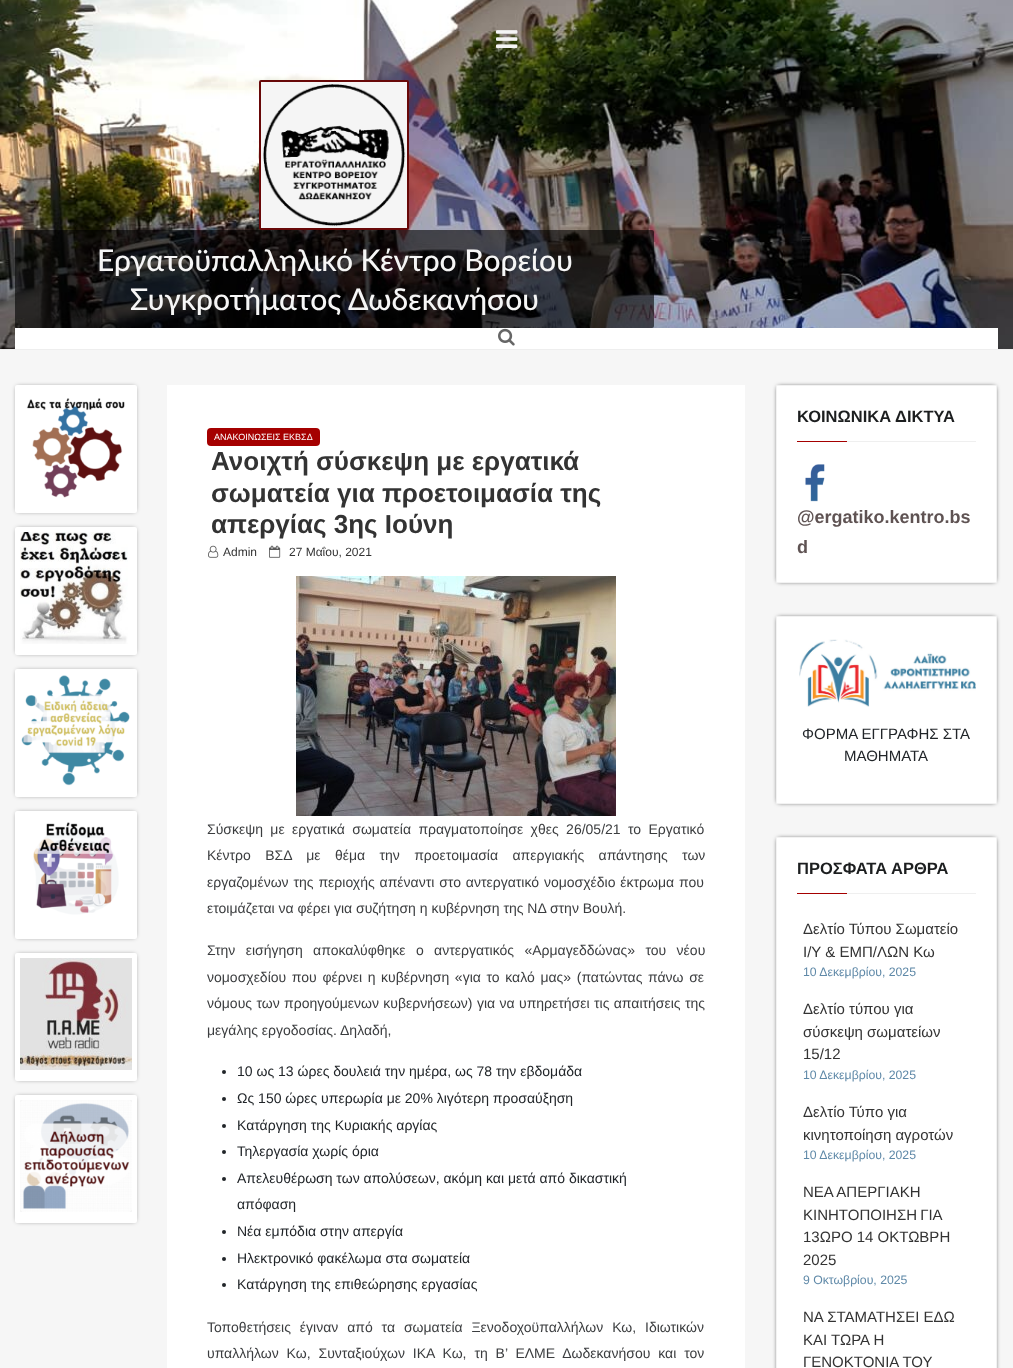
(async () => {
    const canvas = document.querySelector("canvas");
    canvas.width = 1013;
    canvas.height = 1368;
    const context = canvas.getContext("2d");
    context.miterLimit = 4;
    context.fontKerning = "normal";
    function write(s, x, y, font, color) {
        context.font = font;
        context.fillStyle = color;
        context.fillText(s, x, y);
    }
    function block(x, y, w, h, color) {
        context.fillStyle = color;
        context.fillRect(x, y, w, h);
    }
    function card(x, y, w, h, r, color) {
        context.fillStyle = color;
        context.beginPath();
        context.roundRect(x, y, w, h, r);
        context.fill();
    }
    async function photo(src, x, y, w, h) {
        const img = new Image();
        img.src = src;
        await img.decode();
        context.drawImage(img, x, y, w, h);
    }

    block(0, 0, 1013, 1368, "rgb(246, 246, 246)");
    await photo("media/1.png", 0, 0, 1013, 349);
    block(0, 349, 1013, 1, "rgb(238, 238, 238)");
    await photo("media/2.png", 496, 30, 22, 18);
    context.fillStyle = "rgb(245, 245, 245)";
    context.beginPath();
    context.roundRect(260, 81, 148, 148, 1);
    context.fill();
    context.strokeStyle = "rgb(104, 8, 8)";
    context.lineWidth = 2;
    context.stroke();
    await photo("media/3.png", 263, 84, 143, 143);
    card(15, 230, 639, 98, 2, "rgba(0, 0, 0, 0.6)");
    write("Εργατοϋπαλληλικό Κέντρο Βορείου", 97, 271, "500 30px Lato", "rgb(246, 246, 246)");
    write("Συγκροτήματος Δωδεκανήσου", 130, 310, "500 30px Lato", "rgb(246, 246, 246)");
    block(15, 328, 983, 21, "rgb(255, 255, 255)");
    await photo("media/4.png", 498, 328, 17, 18);
    context.fillStyle = "rgba(0, 0, 0, 0.62)";
    context.filter = "blur(2.5px)";
    context.beginPath();
    context.rect(17, 387, 118, 124);
    context.fill();
    context.filter = "none";
    card(15, 385, 122, 128, 2, "rgb(255, 255, 255)");
    await photo("media/5.png", 26, 398, 99, 100);
    context.fillStyle = "rgba(0, 0, 0, 0.62)";
    context.filter = "blur(2.5px)";
    context.beginPath();
    context.rect(17, 529, 118, 124);
    context.fill();
    context.filter = "none";
    card(15, 527, 122, 128, 2, "rgb(255, 255, 255)");
    await photo("media/6.png", 20, 532, 108, 112);
    context.fillStyle = "rgba(0, 0, 0, 0.62)";
    context.filter = "blur(2.5px)";
    context.beginPath();
    context.rect(17, 671, 118, 124);
    context.fill();
    context.filter = "none";
    card(15, 669, 122, 128, 2, "rgb(255, 255, 255)");
    await photo("media/7.png", 21, 675, 109, 111);
    context.fillStyle = "rgba(0, 0, 0, 0.62)";
    context.filter = "blur(2.5px)";
    context.beginPath();
    context.rect(17, 813, 118, 124);
    context.fill();
    context.filter = "none";
    card(15, 811, 122, 128, 2, "rgb(255, 255, 255)");
    await photo("media/8.png", 33, 822, 86, 93);
    context.fillStyle = "rgba(0, 0, 0, 0.62)";
    context.filter = "blur(2.5px)";
    context.beginPath();
    context.rect(17, 955, 118, 124);
    context.fill();
    context.filter = "none";
    card(15, 953, 122, 128, 2, "rgb(255, 255, 255)");
    await photo("media/9.png", 20, 958, 112, 112);
    context.fillStyle = "rgba(0, 0, 0, 0.62)";
    context.filter = "blur(2.5px)";
    context.beginPath();
    context.rect(17, 1097, 118, 124);
    context.fill();
    context.filter = "none";
    card(15, 1095, 122, 128, 2, "rgb(255, 255, 255)");
    await photo("media/10.png", 20, 1100, 112, 112);
    block(167, 385, 578, 983, "rgb(255, 255, 255)");
    card(207, 428, 113, 18, 4, "rgb(165, 0, 0)");
    write("ΑΝΑΚΟΙΝΩΣΕΙΣ ΕΚΒΣΔ", 214, 440, "9px Liberation Sans", "rgb(255, 255, 255)");
    write("Ανοιχτή σύσκεψη με εργατικά", 211, 470, "bold 26px Liberation Sans", "rgb(51, 51, 51)");
    write("σωματεία για προετοιμασία της", 211, 502, "bold 26px Liberation Sans", "rgb(51, 51, 51)");
    write("απεργίας 3ης Ιούνη", 211, 533, "bold 26px Liberation Sans", "rgb(51, 51, 51)");
    await photo("media/11.png", 208, 545, 11, 13);
    write("Admin", 223, 556, "12px Liberation Sans", "rgb(51, 51, 51)");
    await photo("media/12.png", 269, 545, 12, 13);
    write("27 Μαΐου, 2021", 289, 556, "12px Liberation Sans", "rgb(51, 51, 51)");
    await photo("media/13.png", 296, 576, 320, 240);
    context.wordSpacing = "3.5px";
    write("Σύσκεψη με εργατικά σωματεία πραγματοποίησε χθες 26/05/21 το Εργατικό", 207, 834, "14px Liberation Sans", "rgb(59, 61, 63)");
    context.wordSpacing = "10.5px";
    write("Κέντρο ΒΣΔ με θέμα την προετοιμασία απεργιακής απάντησης των", 207, 860, "14px Liberation Sans", "rgb(59, 61, 63)");
    context.wordSpacing = "1px";
    write("εργαζομένων της περιοχής απέναντι στο αντεργατικό νομοσχέδιο έκτρωμα που", 207, 887, "14px Liberation Sans", "rgb(59, 61, 63)");
    context.wordSpacing = "0px";
    write("ετοιμάζεται να φέρει για συζήτηση η κυβέρνηση της ΝΔ στην Βουλή.", 207, 913, "14px Liberation Sans", "rgb(59, 61, 63)");
    context.wordSpacing = "6.5px";
    write("Στην εισήγηση αποκαλύφθηκε ο αντεργατικός «Αρμαγεδδώνας» του νέου", 207, 955, "14px Liberation Sans", "rgb(59, 61, 63)");
    context.wordSpacing = "1.75px";
    write("νομοσχεδίου που φέρνει η κυβέρνηση «για το καλό μας» (πατώντας πάνω σε", 207, 982, "14px Liberation Sans", "rgb(59, 61, 63)");
    context.wordSpacing = "0.5px";
    write("νόμους των προηγούμενων κυβερνήσεων) για να υπηρετήσει τις απαιτήσεις της", 207, 1008, "14px Liberation Sans", "rgb(59, 61, 63)");
    context.wordSpacing = "0px";
    write("μεγάλης εργοδοσίας. Δηλαδή,", 207, 1035, "14px Liberation Sans", "rgb(59, 61, 63)");
    context.fillStyle = "rgb(33, 37, 41)";
    context.beginPath();
    context.arc(224, 1072, 2, 0, Math.PI * 2);
    context.fill();
    write("10 ως 13 ώρες δουλειά την ημέρα, ως 78 την εβδομάδα", 237, 1076, "14px Liberation Sans", "rgb(33, 37, 41)");
    context.beginPath();
    context.arc(224, 1099, 2, 0, Math.PI * 2);
    context.fill();
    write("Ως 150 ώρες υπερωρία με 20% λιγότερη προσαύξηση", 237, 1103, "14px Liberation Sans", "rgb(33, 37, 41)");
    context.beginPath();
    context.arc(224, 1126, 2, 0, Math.PI * 2);
    context.fill();
    write("Κατάργηση της Κυριακής αργίας", 237, 1130, "14px Liberation Sans", "rgb(33, 37, 41)");
    context.beginPath();
    context.arc(224, 1152, 2, 0, Math.PI * 2);
    context.fill();
    write("Τηλεργασία χωρίς όρια", 237, 1156, "14px Liberation Sans", "rgb(33, 37, 41)");
    context.beginPath();
    context.arc(224, 1179, 2, 0, Math.PI * 2);
    context.fill();
    write("Απελευθέρωση των απολύσεων, ακόμη και μετά από δικαστική", 237, 1183, "14px Liberation Sans", "rgb(33, 37, 41)");
    write("απόφαση", 237, 1209, "14px Liberation Sans", "rgb(33, 37, 41)");
    context.beginPath();
    context.arc(224, 1232, 2, 0, Math.PI * 2);
    context.fill();
    write("Νέα εμπόδια στην απεργία", 237, 1236, "14px Liberation Sans", "rgb(33, 37, 41)");
    context.beginPath();
    context.arc(224, 1259, 2, 0, Math.PI * 2);
    context.fill();
    write("Ηλεκτρονικό φακέλωμα στα σωματεία", 237, 1263, "14px Liberation Sans", "rgb(33, 37, 41)");
    context.beginPath();
    context.arc(224, 1285, 2, 0, Math.PI * 2);
    context.fill();
    write("Κατάργηση της επιθεώρησης εργασίας", 237, 1289, "14px Liberation Sans", "rgb(33, 37, 41)");
    context.wordSpacing = "5px";
    write("Τοποθετήσεις έγιναν από τα σωματεία Ξενοδοχοϋπαλλήλων Κω, Ιδιωτικών", 207, 1332, "14px Liberation Sans", "rgb(59, 61, 63)");
    context.wordSpacing = "4px";
    write("υπαλλήλων Κω, Συνταξιούχων ΙΚΑ Κω, τη Β’ ΕΛΜΕ Δωδεκανήσου και τον", 207, 1358, "14px Liberation Sans", "rgb(59, 61, 63)");
    context.fillStyle = "rgb(0, 0, 0)";
    context.filter = "blur(2.5px)";
    context.beginPath();
    context.rect(778, 387, 217, 194);
    context.fill();
    context.filter = "none";
    context.fillStyle = "rgb(255, 255, 255)";
    context.beginPath();
    context.rect(776.5, 385.5, 220, 197);
    context.fill();
    context.strokeStyle = "rgb(242, 242, 242)";
    context.lineWidth = 1;
    context.stroke();
    context.wordSpacing = "0px";
    write("ΚΟΙΝΩΝΙΚΑ ΔΙΚΤΥΑ", 797, 422, "bold 16.5px Liberation Sans", "rgb(28, 30, 31)");
    block(797, 441, 50, 1, "rgb(165, 0, 0)");
    block(847, 441, 129, 1, "rgb(239, 239, 239)");
    await photo("media/14.png", 805, 464, 20, 38);
    write("@ergatiko.kentro.bs", 797, 523, "bold 18px Liberation Sans", "rgb(95, 83, 83)");
    write("d", 797, 553, "bold 18px Liberation Sans", "rgb(95, 83, 83)");
    context.fillStyle = "rgb(0, 0, 0)";
    context.filter = "blur(2.5px)";
    context.beginPath();
    context.rect(778, 618, 217, 184);
    context.fill();
    context.filter = "none";
    context.fillStyle = "rgb(255, 255, 255)";
    context.beginPath();
    context.rect(776.5, 616.5, 220, 187);
    context.fill();
    context.stroke();
    await photo("media/15.png", 799, 639, 177, 68);
    write("ΦΟΡΜΑ ΕΓΓΡΑΦΗΣ ΣΤΑ", 802, 739, "15px Liberation Sans", "rgb(33, 37, 41)");
    write("ΜΑΘΗΜΑΤΑ", 844, 761, "15px Liberation Sans", "rgb(33, 37, 41)");
    context.fillStyle = "rgb(0, 0, 0)";
    context.filter = "blur(2.5px)";
    context.beginPath();
    context.rect(778, 839, 217, 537);
    context.fill();
    context.filter = "none";
    context.fillStyle = "rgb(255, 255, 255)";
    context.beginPath();
    context.rect(776.5, 837.5, 220, 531);
    context.fill();
    context.stroke();
    write("ΠΡΟΣΦΑΤΑ ΑΡΘΡΑ", 797, 874, "bold 16.5px Liberation Sans", "rgb(28, 30, 31)");
    block(797, 893, 50, 1, "rgb(165, 0, 0)");
    block(847, 893, 129, 1, "rgb(239, 239, 239)");
    write("Δελτίο Τύπου Σωματείο", 803, 934, "15px Liberation Sans", "rgb(51, 51, 51)");
    write("Ι/Υ & ΕΜΠ/ΛΩΝ Κω", 803, 957, "15px Liberation Sans", "rgb(51, 51, 51)");
    write("10 Δεκεμβρίου, 2025", 803, 976, "12.25px Liberation Sans", "rgb(95, 137, 168)");
    write("Δελτίο τύπου για", 803, 1014, "15px Liberation Sans", "rgb(51, 51, 51)");
    write("σύσκεψη σωματείων", 803, 1037, "15px Liberation Sans", "rgb(51, 51, 51)");
    write("15/12", 803, 1059, "15px Liberation Sans", "rgb(51, 51, 51)");
    write("10 Δεκεμβρίου, 2025", 803, 1079, "12.25px Liberation Sans", "rgb(95, 137, 168)");
    write("Δελτίο Τύπο για", 803, 1117, "15px Liberation Sans", "rgb(51, 51, 51)");
    write("κινητοποίηση αγροτών", 803, 1140, "15px Liberation Sans", "rgb(51, 51, 51)");
    write("10 Δεκεμβρίου, 2025", 803, 1159, "12.25px Liberation Sans", "rgb(95, 137, 168)");
    write("ΝΕΑ ΑΠΕΡΓΙΑΚΗ", 803, 1197, "15px Liberation Sans", "rgb(51, 51, 51)");
    context.wordSpacing = "-1px";
    write("ΚΙΝΗΤΟΠΟΙΗΣΗ ΓΙΑ", 803, 1220, "15px Liberation Sans", "rgb(51, 51, 51)");
    context.wordSpacing = "0px";
    write("13ΩΡΟ 14 ΟΚΤΩΒΡΗ", 803, 1242, "15px Liberation Sans", "rgb(51, 51, 51)");
    write("2025", 803, 1265, "15px Liberation Sans", "rgb(51, 51, 51)");
    write("9 Οκτωβρίου, 2025", 803, 1284, "12.25px Liberation Sans", "rgb(95, 137, 168)");
    write("ΝΑ ΣΤΑΜΑΤΗΣΕΙ ΕΔΩ", 803, 1322, "15px Liberation Sans", "rgb(51, 51, 51)");
    write("ΚΑΙ ΤΩΡΑ Η", 803, 1345, "15px Liberation Sans", "rgb(51, 51, 51)");
    write("ΓΕΝΟΚΤΟΝΙΑ ΤΟΥ", 803, 1367, "15px Liberation Sans", "rgb(51, 51, 51)");
})();
